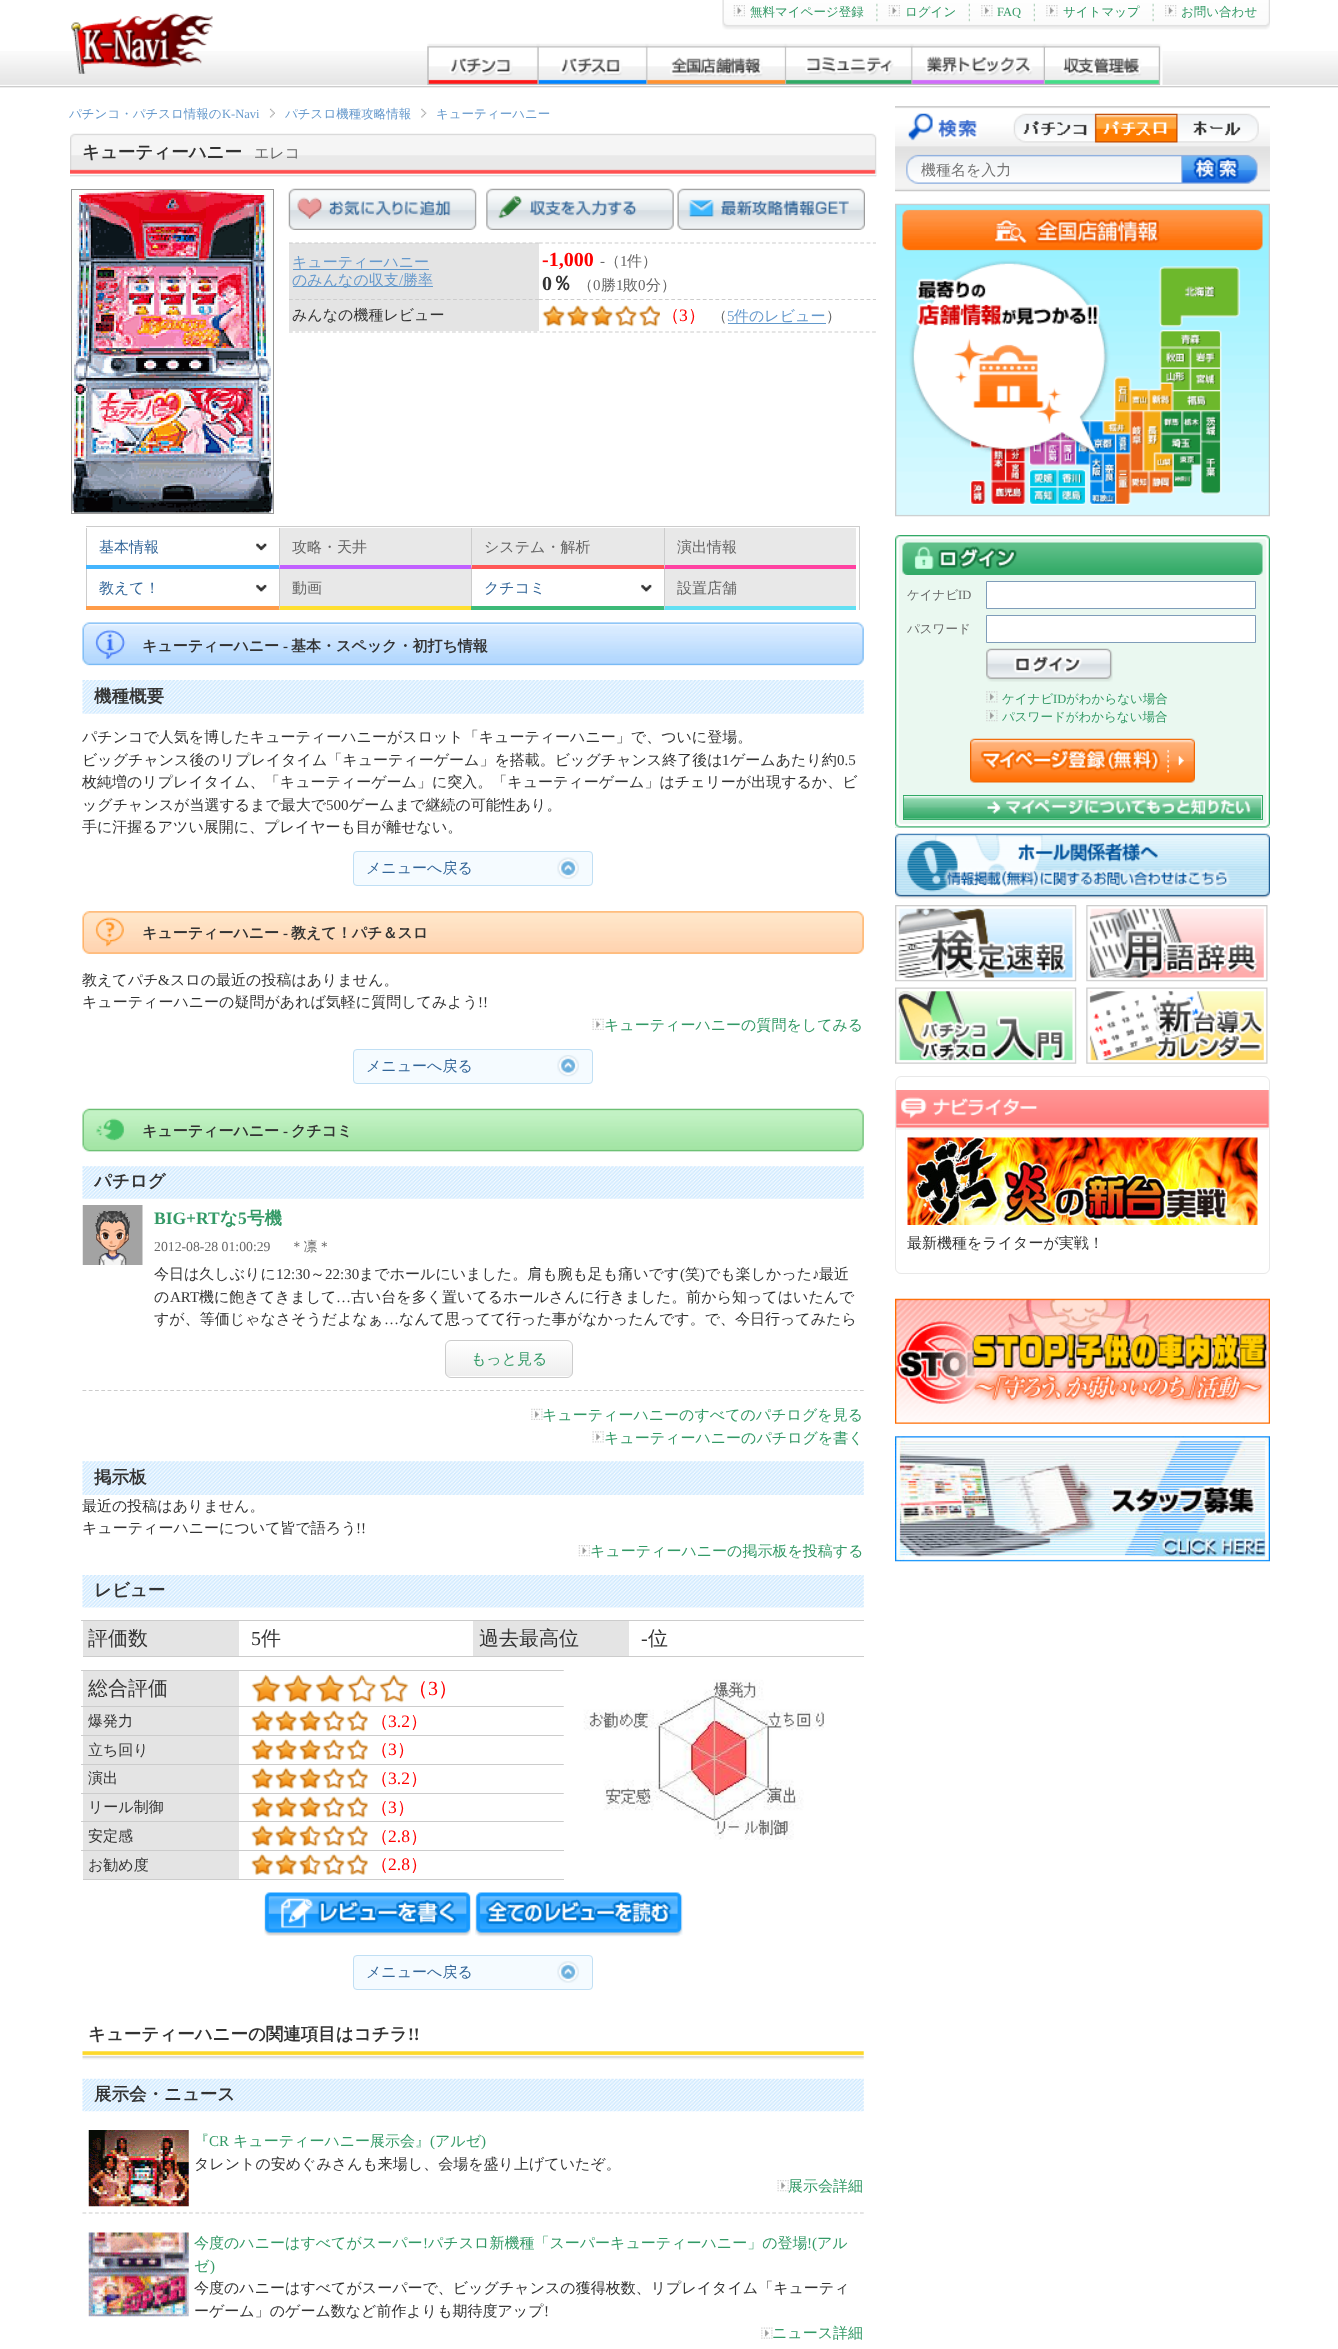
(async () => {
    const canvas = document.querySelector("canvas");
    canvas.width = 1338;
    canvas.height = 2349;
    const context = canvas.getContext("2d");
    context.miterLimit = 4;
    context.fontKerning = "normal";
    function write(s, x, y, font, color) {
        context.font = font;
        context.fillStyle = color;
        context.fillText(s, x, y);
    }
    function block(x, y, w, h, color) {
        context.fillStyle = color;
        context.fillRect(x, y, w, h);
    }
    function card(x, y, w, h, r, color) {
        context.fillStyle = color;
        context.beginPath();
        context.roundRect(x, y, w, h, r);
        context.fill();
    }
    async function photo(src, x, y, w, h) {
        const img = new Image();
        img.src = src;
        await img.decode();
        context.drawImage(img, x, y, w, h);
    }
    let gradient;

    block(0, 0, 1338, 2349, "rgb(255, 255, 255)");
    await photo("media/1.png", 0, 51, 1338, 37);
    await photo("media/2.png", 722, 0, 544, 30);
    await photo("media/3.png", 733, 5, 12, 12);
    write("無料マイページ登録", 750, 16, "500 12.5px WenQuanYi Zen Hei", "rgb(51, 153, 102)");
    await photo("media/4.png", 876, 3, 2, 19);
    await photo("media/3.png", 888, 5, 12, 12);
    write("ログイン", 905, 16, "500 12.5px WenQuanYi Zen Hei", "rgb(51, 153, 102)");
    await photo("media/5.png", 968, 3, 2, 19);
    await photo("media/6.png", 981, 5, 12, 12);
    write("FAQ", 997, 16, "12.5px Liberation Serif", "rgb(51, 153, 102)");
    await photo("media/5.png", 1033, 3, 2, 19);
    await photo("media/6.png", 1046, 5, 12, 12);
    write("サイトマップ", 1063, 16, "500 12.5px WenQuanYi Zen Hei", "rgb(51, 153, 102)");
    await photo("media/7.png", 1152, 3, 2, 19);
    await photo("media/8.png", 1165, 5, 12, 12);
    write("お問い合わせ", 1181, 16, "500 12.5px WenQuanYi Zen Hei", "rgb(51, 153, 102)");
    await photo("media/9.png", 1266, 0, 4, 30);
    await photo("media/10.png", 71, 13, 142, 61);
    await photo("media/11.png", 427, 43, 736, 42);
    await photo("media/12.png", 427, 46, 111, 39);
    await photo("media/13.png", 537, 47, 111, 37);
    await photo("media/14.png", 647, 47, 140, 37);
    await photo("media/15.png", 786, 47, 127, 37);
    await photo("media/16.png", 912, 47, 133, 37);
    await photo("media/17.png", 1045, 48, 115, 37);
    await photo("media/18.png", 269, 108, 6, 10);
    write("パチンコ・パチスロ情報の", 69, 118, "500 12.5px WenQuanYi Zen Hei", "rgb(102, 153, 204)");
    write("K-Navi", 222, 118, "12.5px Liberation Serif", "rgb(102, 153, 204)");
    await photo("media/19.png", 421, 108, 6, 10);
    write("パチスロ機種攻略情報", 285, 118, "500 12.5px WenQuanYi Zen Hei", "rgb(102, 153, 204)");
    write("キューティーハニー", 436, 118, "500 12.5px WenQuanYi Zen Hei", "rgb(102, 153, 204)");
    await photo("media/20.png", 70, 133, 807, 44);
    await photo("media/21.png", 70, 169, 807, 8);
    write("キューティーハニー", 82, 158, "bold 17.5px WenQuanYi Zen Hei", "rgb(51, 51, 51)");
    write("エレコ", 254, 158, "500 15px WenQuanYi Zen Hei", "rgb(102, 102, 102)");
    context.strokeStyle = "rgb(153, 153, 153)";
    context.strokeRect(71.5, 189.5, 202, 324);
    await photo("media/22.png", 72, 190, 201, 323);
    await photo("media/23.png", 288, 188, 189, 42);
    await photo("media/24.png", 486, 188, 188, 42);
    await photo("media/25.png", 677, 188, 188, 42);
    context.beginPath();
    context.moveTo(289, 332);
    context.lineTo(876, 332);
    context.strokeStyle = "rgb(204, 204, 204)";
    context.lineWidth = 1.2;
    context.setLineDash([3.75, 2.52]);
    context.stroke();
    block(289, 243, 250, 88, "rgb(228, 228, 228)");
    context.beginPath();
    context.moveTo(289, 243);
    context.lineTo(539, 243);
    context.setLineDash([3.75, 2.56]);
    context.stroke();
    write("キューティーハニー", 292, 267, "500 15px WenQuanYi Zen Hei", "rgb(102, 153, 204)");
    block(293, 269, 136, 1, "rgb(98, 153, 204)");
    block(293, 286, 140, 1, "rgb(98, 153, 204)");
    write("のみんなの収支", 292, 285, "500 15px WenQuanYi Zen Hei", "rgb(102, 153, 204)");
    write("/", 399, 285, "15px Liberation Serif", "rgb(102, 153, 204)");
    write("勝率", 403, 285, "500 15px WenQuanYi Zen Hei", "rgb(102, 153, 204)");
    context.beginPath();
    context.moveTo(539, 243);
    context.lineTo(876, 243);
    context.setLineDash([3.75, 2.55]);
    context.stroke();
    write("-1,000", 542, 266, "bold 20px Liberation Serif", "rgb(255, 0, 0)");
    write("-", 600, 266, "15px Liberation Serif", "rgb(102, 102, 102)");
    write("（", 605, 266, "500 15px WenQuanYi Zen Hei", "rgb(102, 102, 102)");
    write("1", 620, 266, "15px Liberation Serif", "rgb(102, 102, 102)");
    write("件）", 627, 266, "500 15px WenQuanYi Zen Hei", "rgb(102, 102, 102)");
    write("0", 542, 290, "bold 20px Liberation Serif", "rgb(51, 51, 51)");
    write("％", 552, 290, "bold 20px WenQuanYi Zen Hei", "rgb(51, 51, 51)");
    write("（", 578, 290, "500 15px WenQuanYi Zen Hei", "rgb(102, 102, 102)");
    write("0", 593, 290, "15px Liberation Serif", "rgb(102, 102, 102)");
    write("勝", 601, 290, "500 15px WenQuanYi Zen Hei", "rgb(102, 102, 102)");
    write("1", 616, 290, "15px Liberation Serif", "rgb(102, 102, 102)");
    write("敗", 623, 290, "500 15px WenQuanYi Zen Hei", "rgb(102, 102, 102)");
    write("0", 638, 290, "15px Liberation Serif", "rgb(102, 102, 102)");
    write("分）", 646, 290, "500 15px WenQuanYi Zen Hei", "rgb(102, 102, 102)");
    context.beginPath();
    context.moveTo(289, 299.5);
    context.lineTo(539, 299.5);
    context.setLineDash([3.75, 2.56]);
    context.stroke();
    write("みんなの機種レビュー", 292, 320, "500 15px WenQuanYi Zen Hei", "rgb(51, 51, 51)");
    context.beginPath();
    context.moveTo(539, 299.5);
    context.lineTo(876, 299.5);
    context.setLineDash([3.75, 2.55]);
    context.stroke();
    await photo("media/26.png", 542, 305, 118, 22);
    write("（", 662, 321, "500 17.5px WenQuanYi Zen Hei", "rgb(255, 0, 0)");
    write("3", 679, 321, "17.5px Liberation Serif", "rgb(255, 0, 0)");
    write("）", 688, 321, "500 17.5px WenQuanYi Zen Hei", "rgb(255, 0, 0)");
    write("（", 712, 321, "500 15px WenQuanYi Zen Hei", "rgb(102, 102, 102)");
    write("5", 727, 321, "15px Liberation Serif", "rgb(102, 153, 204)");
    block(728, 323, 98, 1, "rgb(98, 153, 204)");
    write("件のレビュー", 734, 321, "500 15px WenQuanYi Zen Hei", "rgb(102, 153, 204)");
    write("）", 826, 321, "500 15px WenQuanYi Zen Hei", "rgb(102, 102, 102)");
    block(86, 526, 774, 1, "rgb(204, 204, 204)");
    block(859, 526, 1, 84, "rgb(204, 204, 204)");
    block(86, 565, 193, 4, "rgb(68, 181, 254)");
    await photo("media/27.png", 256, 543, 11, 8);
    block(86, 528, 1, 37, "rgb(204, 204, 204)");
    write("基本情報", 99, 552, "500 15px WenQuanYi Zen Hei", "rgb(51, 102, 153)");
    block(279, 528, 577, 41, "rgb(232, 232, 232)");
    context.fillStyle = "rgb(193, 96, 255)";
    context.beginPath();
    context.moveTo(471, 569);
    context.lineTo(279, 569);
    context.lineTo(280, 565);
    context.lineTo(471, 565);
    context.closePath();
    context.fill();
    context.fillStyle = "rgb(204, 204, 204)";
    context.beginPath();
    context.moveTo(279, 569);
    context.lineTo(279, 528);
    context.lineTo(280, 528);
    context.lineTo(280, 565);
    context.closePath();
    context.fill();
    write("攻略・天井", 292, 552, "500 15px WenQuanYi Zen Hei", "rgb(102, 102, 102)");
    context.fillStyle = "rgb(255, 87, 87)";
    context.beginPath();
    context.moveTo(664, 569);
    context.lineTo(471, 569);
    context.lineTo(472, 565);
    context.lineTo(664, 565);
    context.closePath();
    context.fill();
    context.fillStyle = "rgb(204, 204, 204)";
    context.beginPath();
    context.moveTo(471, 569);
    context.lineTo(471, 528);
    context.lineTo(472, 528);
    context.lineTo(472, 565);
    context.closePath();
    context.fill();
    write("システム・解析", 484, 552, "500 15px WenQuanYi Zen Hei", "rgb(102, 102, 102)");
    context.fillStyle = "rgb(255, 66, 161)";
    context.beginPath();
    context.moveTo(856, 569);
    context.lineTo(664, 569);
    context.lineTo(665, 565);
    context.lineTo(856, 565);
    context.closePath();
    context.fill();
    context.fillStyle = "rgb(204, 204, 204)";
    context.beginPath();
    context.moveTo(664, 569);
    context.lineTo(664, 528);
    context.lineTo(665, 528);
    context.lineTo(665, 565);
    context.closePath();
    context.fill();
    write("演出情報", 677, 552, "500 15px WenQuanYi Zen Hei", "rgb(102, 102, 102)");
    block(86, 606, 193, 4, "rgb(255, 156, 73)");
    await photo("media/28.png", 256, 584, 11, 8);
    block(86, 569, 1, 37, "rgb(204, 204, 204)");
    write("教えて！", 99, 593, "500 15px WenQuanYi Zen Hei", "rgb(51, 102, 153)");
    block(279, 569, 192, 41, "rgb(232, 232, 232)");
    context.fillStyle = "rgb(255, 223, 48)";
    context.beginPath();
    context.moveTo(471, 610);
    context.lineTo(279, 610);
    context.lineTo(280, 606);
    context.lineTo(471, 606);
    context.closePath();
    context.fill();
    context.fillStyle = "rgb(204, 204, 204)";
    context.beginPath();
    context.moveTo(279, 610);
    context.lineTo(279, 569);
    context.lineTo(280, 569);
    context.lineTo(280, 606);
    context.closePath();
    context.fill();
    write("動画", 292, 593, "500 15px WenQuanYi Zen Hei", "rgb(102, 102, 102)");
    block(471, 606, 193, 4, "rgb(61, 186, 120)");
    await photo("media/28.png", 641, 584, 11, 8);
    block(471, 569, 1, 37, "rgb(204, 204, 204)");
    write("クチコミ", 484, 593, "500 15px WenQuanYi Zen Hei", "rgb(51, 102, 153)");
    block(664, 569, 192, 41, "rgb(232, 232, 232)");
    context.fillStyle = "rgb(98, 224, 243)";
    context.beginPath();
    context.moveTo(856, 610);
    context.lineTo(664, 610);
    context.lineTo(665, 606);
    context.lineTo(856, 606);
    context.closePath();
    context.fill();
    context.fillStyle = "rgb(204, 204, 204)";
    context.beginPath();
    context.moveTo(664, 610);
    context.lineTo(664, 569);
    context.lineTo(665, 569);
    context.lineTo(665, 606);
    context.closePath();
    context.fill();
    write("設置店舗", 677, 593, "500 15px WenQuanYi Zen Hei", "rgb(102, 102, 102)");
    await photo("media/29.png", 82, 622, 782, 44);
    write("キューティーハニー", 142, 651, "bold 15px WenQuanYi Zen Hei", "rgb(51, 51, 51)");
    write("-", 283, 651, "bold 15px Liberation Serif", "rgb(51, 51, 51)");
    write("基本・スペック・初打ち情報", 291, 651, "bold 15px WenQuanYi Zen Hei", "rgb(51, 51, 51)");
    await photo("media/30.png", 82, 680, 782, 34);
    write("機種概要", 94, 702, "bold 17.5px WenQuanYi Zen Hei", "rgb(51, 51, 51)");
    write("パチンコで人気を博したキューティーハニーがスロット「キューティーハニー」で、ついに登場。", 82, 742, "500 15px WenQuanYi Zen Hei", "rgb(51, 51, 51)");
    write("ビッグチャンス後のリプレイタイム「キューティーゲーム」を搭載。ビッグチャンス終了後は", 82, 765, "500 15px WenQuanYi Zen Hei", "rgb(51, 51, 51)");
    write("1", 722, 765, "15px Liberation Serif", "rgb(51, 51, 51)");
    write("ゲームあたり約", 730, 765, "500 15px WenQuanYi Zen Hei", "rgb(51, 51, 51)");
    write("0.5", 837, 765, "15px Liberation Serif", "rgb(51, 51, 51)");
    write("枚純増のリプレイタイム、「キューティーゲーム」に突入。「キューティーゲーム」はチェリーが出現するか、ビ", 82, 787, "500 15px WenQuanYi Zen Hei", "rgb(51, 51, 51)");
    write("ッグチャンスが当選するまで最大で", 82, 810, "500 15px WenQuanYi Zen Hei", "rgb(51, 51, 51)");
    write("500", 326, 810, "15px Liberation Serif", "rgb(51, 51, 51)");
    write("ゲームまで継続の可能性あり。", 349, 810, "500 15px WenQuanYi Zen Hei", "rgb(51, 51, 51)");
    write("手に汗握るアツい展開に、プレイヤーも目が離せない。", 82, 832, "500 15px WenQuanYi Zen Hei", "rgb(51, 51, 51)");
    card(353, 851, 240, 35, 4, "rgb(245, 251, 255)");
    await photo("media/31.png", 557, 857, 22, 22);
    context.beginPath();
    context.roundRect(353.5, 851.5, 239, 34, 3.5);
    context.strokeStyle = "rgb(192, 223, 244)";
    context.lineWidth = 1;
    context.setLineDash([]);
    context.stroke();
    write("メニューへ戻る", 366, 873, "500 15px WenQuanYi Zen Hei", "rgb(51, 102, 153)");
    await photo("media/32.png", 82, 911, 782, 43);
    write("キューティーハニー", 142, 938, "bold 15px WenQuanYi Zen Hei", "rgb(51, 51, 51)");
    write("-", 283, 938, "bold 15px Liberation Serif", "rgb(51, 51, 51)");
    write("教えて！パチ＆スロ", 291, 938, "bold 15px WenQuanYi Zen Hei", "rgb(51, 51, 51)");
    write("教えてパチ", 82, 985, "500 15px WenQuanYi Zen Hei", "rgb(51, 51, 51)");
    write("&", 158, 985, "15px Liberation Serif", "rgb(51, 51, 51)");
    write("スロの最近の投稿はありません。", 170, 985, "500 15px WenQuanYi Zen Hei", "rgb(51, 51, 51)");
    write("キューティーハニーの疑問があれば気軽に質問してみよう", 82, 1007, "500 15px WenQuanYi Zen Hei", "rgb(51, 51, 51)");
    write("!!", 478, 1007, "15px Liberation Serif", "rgb(51, 51, 51)");
    await photo("media/33.png", 592, 1018, 12, 12);
    write("キューティーハニーの質問をしてみる", 604, 1030, "500 15px WenQuanYi Zen Hei", "rgb(51, 153, 102)");
    card(353, 1049, 240, 35, 4, "rgb(245, 251, 255)");
    await photo("media/34.png", 557, 1055, 22, 22);
    context.beginPath();
    context.roundRect(353.5, 1049.5, 239, 34, 3.5);
    context.stroke();
    write("メニューへ戻る", 366, 1071, "500 15px WenQuanYi Zen Hei", "rgb(51, 102, 153)");
    await photo("media/35.png", 82, 1108, 782, 44);
    write("キューティーハニー", 142, 1136, "bold 15px WenQuanYi Zen Hei", "rgb(51, 51, 51)");
    write("-", 283, 1136, "bold 15px Liberation Serif", "rgb(51, 51, 51)");
    write("クチコミ", 291, 1136, "bold 15px WenQuanYi Zen Hei", "rgb(51, 51, 51)");
    await photo("media/36.png", 82, 1166, 782, 33);
    write("パチログ", 94, 1187, "bold 17.5px WenQuanYi Zen Hei", "rgb(51, 51, 51)");
    context.beginPath();
    context.moveTo(82.5, 1390.5);
    context.lineTo(864, 1390.5);
    context.strokeStyle = "rgb(204, 204, 204)";
    context.lineWidth = 1.2;
    context.setLineDash([3.75, 2.52]);
    context.stroke();
    await photo("media/37.png", 82, 1205, 61, 60);
    write("BIG+RT", 154, 1224, "bold 17.5px Liberation Serif", "rgb(51, 153, 102)");
    write("な", 220, 1224, "bold 17.5px WenQuanYi Zen Hei", "rgb(51, 153, 102)");
    write("5", 238, 1224, "bold 17.5px Liberation Serif", "rgb(51, 153, 102)");
    write("号機", 247, 1224, "bold 17.5px WenQuanYi Zen Hei", "rgb(51, 153, 102)");
    write("2012-08-28 01:00:29", 154, 1251, "13.75px Liberation Serif", "rgb(102, 102, 102)");
    write("＊凛＊", 290, 1251, "500 13.75px WenQuanYi Zen Hei", "rgb(102, 102, 102)");
    write("今日は久しぶりに", 154, 1279, "500 15px WenQuanYi Zen Hei", "rgb(51, 51, 51)");
    write("12:30", 276, 1279, "15px Liberation Serif", "rgb(51, 51, 51)");
    write("～", 310, 1279, "500 15px WenQuanYi Zen Hei", "rgb(51, 51, 51)");
    write("22:30", 325, 1279, "15px Liberation Serif", "rgb(51, 51, 51)");
    write("までホールにいました。肩も腕も足も痛いです", 359, 1279, "500 15px WenQuanYi Zen Hei", "rgb(51, 51, 51)");
    write("(", 680, 1279, "15px Liberation Serif", "rgb(51, 51, 51)");
    write("笑", 685, 1279, "500 15px WenQuanYi Zen Hei", "rgb(51, 51, 51)");
    write(")", 700, 1279, "15px Liberation Serif", "rgb(51, 51, 51)");
    write("でも楽しかった", 705, 1279, "500 15px WenQuanYi Zen Hei", "rgb(51, 51, 51)");
    write("♪", 812, 1279, "15px Liberation Serif", "rgb(51, 51, 51)");
    write("最近", 819, 1279, "500 15px WenQuanYi Zen Hei", "rgb(51, 51, 51)");
    write("の", 154, 1302, "500 15px WenQuanYi Zen Hei", "rgb(51, 51, 51)");
    write("ART", 170, 1302, "15px Liberation Serif", "rgb(51, 51, 51)");
    write("機に飽きてきまして", 199, 1302, "500 15px WenQuanYi Zen Hei", "rgb(51, 51, 51)");
    write("…", 336, 1302, "15px Liberation Serif", "rgb(51, 51, 51)");
    write("古い台を多く置いてるホールさんに行きました。前から知ってはいたんで", 351, 1302, "500 15px WenQuanYi Zen Hei", "rgb(51, 51, 51)");
    write("すが、等価じゃなさそうだよなぁ", 154, 1324, "500 15px WenQuanYi Zen Hei", "rgb(51, 51, 51)");
    write("…", 384, 1324, "15px Liberation Serif", "rgb(51, 51, 51)");
    write("なんて思ってて行った事がなかったんです。で、今日行ってみたら", 399, 1324, "500 15px WenQuanYi Zen Hei", "rgb(51, 51, 51)");
    context.save();
    context.beginPath();
    context.roundRect(445, 1340, 128, 38, 6);
    context.clip();
    gradient = context.createLinearGradient(509, 1341, 509, 1376);
    gradient.addColorStop(0, "rgb(255, 255, 255)");
    gradient.addColorStop(1, "rgb(238, 238, 238)");
    context.fillStyle = gradient;
    context.fillRect(445, 1341, 128, 35);
    context.restore();
    context.beginPath();
    context.roundRect(445.5, 1340.5, 127, 37, 5.5);
    context.lineWidth = 1;
    context.setLineDash([]);
    context.stroke();
    write("もっと見る", 471, 1364, "500 15px WenQuanYi Zen Hei", "rgb(51, 153, 102)");
    await photo("media/38.png", 531, 1408, 12, 12);
    write("キューティーハニーのすべてのパチログを見る", 542, 1420, "500 15px WenQuanYi Zen Hei", "rgb(51, 153, 102)");
    await photo("media/39.png", 592, 1431, 12, 12);
    write("キューティーハニーのパチログを書く", 604, 1443, "500 15px WenQuanYi Zen Hei", "rgb(51, 153, 102)");
    await photo("media/40.png", 82, 1461, 782, 34);
    write("掲示板", 94, 1483, "bold 17.5px WenQuanYi Zen Hei", "rgb(51, 51, 51)");
    write("最近の投稿はありません。", 82, 1511, "500 15px WenQuanYi Zen Hei", "rgb(51, 51, 51)");
    write("キューティーハニーについて皆で語ろう", 82, 1533, "500 15px WenQuanYi Zen Hei", "rgb(51, 51, 51)");
    write("!!", 356, 1533, "15px Liberation Serif", "rgb(51, 51, 51)");
    await photo("media/41.png", 578, 1545, 12, 12);
    write("キューティーハニーの掲示板を投稿する", 590, 1556, "500 15px WenQuanYi Zen Hei", "rgb(51, 153, 102)");
    await photo("media/42.png", 82, 1575, 782, 33);
    write("レビュー", 94, 1596, "bold 17.5px WenQuanYi Zen Hei", "rgb(51, 51, 51)");
    block(81, 1620, 783, 1, "rgb(204, 204, 204)");
    block(83, 1656, 781, 1, "rgb(204, 204, 204)");
    block(83, 1621, 156, 35, "rgb(228, 228, 228)");
    write("評価数", 88, 1645, "500 20px WenQuanYi Zen Hei", "rgb(51, 51, 51)");
    write("5", 251, 1645, "20px Liberation Serif", "rgb(51, 51, 51)");
    write("件", 261, 1645, "500 20px WenQuanYi Zen Hei", "rgb(51, 51, 51)");
    block(473, 1621, 156, 35, "rgb(228, 228, 228)");
    write("過去最高位", 479, 1645, "500 20px WenQuanYi Zen Hei", "rgb(51, 51, 51)");
    write("-", 641, 1645, "20px Liberation Serif", "rgb(51, 51, 51)");
    write("位", 648, 1645, "500 20px WenQuanYi Zen Hei", "rgb(51, 51, 51)");
    block(81, 1670, 483, 1, "rgb(204, 204, 204)");
    block(83, 1879, 481, 1, "rgb(204, 204, 204)");
    block(83, 1671, 156, 35, "rgb(228, 228, 228)");
    write("総合評価", 88, 1695, "500 20px WenQuanYi Zen Hei", "rgb(51, 51, 51)");
    await photo("media/43.png", 251, 1674, 158, 29);
    write("（", 408, 1695, "500 20px WenQuanYi Zen Hei", "rgb(255, 0, 0)");
    write("3", 428, 1695, "20px Liberation Serif", "rgb(255, 0, 0)");
    write("）", 438, 1695, "500 20px WenQuanYi Zen Hei", "rgb(255, 0, 0)");
    block(83, 1707, 156, 28, "rgb(228, 228, 228)");
    write("爆発力", 88, 1726, "500 15px WenQuanYi Zen Hei", "rgb(51, 51, 51)");
    block(81, 1706, 483, 1, "rgb(204, 204, 204)");
    await photo("media/44.png", 251, 1710, 117, 22);
    write("（", 371, 1727, "500 17.5px WenQuanYi Zen Hei", "rgb(255, 0, 0)");
    write("3.2", 388, 1727, "17.5px Liberation Serif", "rgb(255, 0, 0)");
    write("）", 410, 1727, "500 17.5px WenQuanYi Zen Hei", "rgb(255, 0, 0)");
    block(83, 1736, 156, 28, "rgb(228, 228, 228)");
    write("立ち回り", 88, 1755, "500 15px WenQuanYi Zen Hei", "rgb(51, 51, 51)");
    block(81, 1735, 483, 1, "rgb(204, 204, 204)");
    await photo("media/45.png", 251, 1738, 117, 22);
    write("（", 371, 1755, "500 17.5px WenQuanYi Zen Hei", "rgb(255, 0, 0)");
    write("3", 388, 1755, "17.5px Liberation Serif", "rgb(255, 0, 0)");
    write("）", 397, 1755, "500 17.5px WenQuanYi Zen Hei", "rgb(255, 0, 0)");
    block(83, 1765, 156, 28, "rgb(228, 228, 228)");
    write("演出", 88, 1783, "500 15px WenQuanYi Zen Hei", "rgb(51, 51, 51)");
    block(81, 1764, 483, 1, "rgb(204, 204, 204)");
    await photo("media/46.png", 251, 1767, 117, 22);
    write("（", 371, 1784, "500 17.5px WenQuanYi Zen Hei", "rgb(255, 0, 0)");
    write("3.2", 388, 1784, "17.5px Liberation Serif", "rgb(255, 0, 0)");
    write("）", 410, 1784, "500 17.5px WenQuanYi Zen Hei", "rgb(255, 0, 0)");
    block(83, 1794, 156, 27, "rgb(228, 228, 228)");
    write("リール制御", 88, 1812, "500 15px WenQuanYi Zen Hei", "rgb(51, 51, 51)");
    block(81, 1793, 483, 1, "rgb(204, 204, 204)");
    await photo("media/47.png", 251, 1796, 117, 22);
    write("（", 371, 1813, "500 17.5px WenQuanYi Zen Hei", "rgb(255, 0, 0)");
    write("3", 388, 1813, "17.5px Liberation Serif", "rgb(255, 0, 0)");
    write("）", 397, 1813, "500 17.5px WenQuanYi Zen Hei", "rgb(255, 0, 0)");
    block(83, 1822, 156, 28, "rgb(228, 228, 228)");
    write("安定感", 88, 1841, "500 15px WenQuanYi Zen Hei", "rgb(51, 51, 51)");
    block(81, 1821, 483, 1, "rgb(204, 204, 204)");
    await photo("media/48.png", 251, 1825, 117, 22);
    write("（", 371, 1842, "500 17.5px WenQuanYi Zen Hei", "rgb(255, 0, 0)");
    write("2.8", 388, 1842, "17.5px Liberation Serif", "rgb(255, 0, 0)");
    write("）", 410, 1842, "500 17.5px WenQuanYi Zen Hei", "rgb(255, 0, 0)");
    block(83, 1851, 156, 28, "rgb(228, 228, 228)");
    write("お勧め度", 88, 1870, "500 15px WenQuanYi Zen Hei", "rgb(51, 51, 51)");
    block(81, 1850, 483, 1, "rgb(204, 204, 204)");
    await photo("media/49.png", 251, 1853, 117, 22);
    write("（", 371, 1870, "500 17.5px WenQuanYi Zen Hei", "rgb(255, 0, 0)");
    write("2.8", 388, 1870, "17.5px Liberation Serif", "rgb(255, 0, 0)");
    write("）", 410, 1870, "500 17.5px WenQuanYi Zen Hei", "rgb(255, 0, 0)");
    await photo("media/50.png", 563, 1670, 261, 170);
    await photo("media/51.png", 264, 1892, 207, 44);
    await photo("media/52.png", 475, 1892, 208, 45);
    card(353, 1955, 240, 35, 4, "rgb(245, 251, 255)");
    await photo("media/53.png", 557, 1961, 22, 22);
    context.beginPath();
    context.roundRect(353.5, 1955.5, 239, 34, 3.5);
    context.strokeStyle = "rgb(192, 223, 244)";
    context.stroke();
    write("メニューへ戻る", 366, 1977, "500 15px WenQuanYi Zen Hei", "rgb(51, 102, 153)");
    await photo("media/54.png", 82, 2051, 782, 9);
    write("キューティーハニーの関連項目はコチラ", 88, 2040, "bold 17.5px WenQuanYi Zen Hei", "rgb(51, 51, 51)");
    write("!!", 408, 2040, "bold 17.5px Liberation Serif", "rgb(51, 51, 51)");
    await photo("media/55.png", 82, 2078, 782, 34);
    write("展示会・ニュース", 94, 2100, "bold 17.5px WenQuanYi Zen Hei", "rgb(51, 51, 51)");
    context.beginPath();
    context.moveTo(82.5, 2213);
    context.lineTo(864, 2213);
    context.strokeStyle = "rgb(204, 204, 204)";
    context.lineWidth = 1.2;
    context.setLineDash([3.75, 2.52]);
    context.stroke();
    await photo("media/56.png", 88, 2130, 101, 77);
    write("『", 194, 2146, "500 15px WenQuanYi Zen Hei", "rgb(51, 153, 102)");
    write("CR", 209, 2146, "15px Liberation Serif", "rgb(51, 153, 102)");
    write("キューティーハニー展示会』", 233, 2146, "500 15px WenQuanYi Zen Hei", "rgb(51, 153, 102)");
    write("(", 430, 2146, "15px Liberation Serif", "rgb(51, 153, 102)");
    write("アルゼ", 435, 2146, "500 15px WenQuanYi Zen Hei", "rgb(51, 153, 102)");
    write(")", 481, 2146, "15px Liberation Serif", "rgb(51, 153, 102)");
    write("タレントの安めぐみさんも来場し、会場を盛り上げていたぞ。", 194, 2169, "500 15px WenQuanYi Zen Hei", "rgb(51, 51, 51)");
    await photo("media/57.png", 777, 2180, 12, 12);
    write("展示会詳細", 788, 2191, "500 15px WenQuanYi Zen Hei", "rgb(51, 153, 102)");
    await photo("media/58.png", 88, 2232, 101, 85);
    write("今度のハニーはすべてがスーパー", 194, 2248, "500 15px WenQuanYi Zen Hei", "rgb(51, 153, 102)");
    write("!", 423, 2248, "15px Liberation Serif", "rgb(51, 153, 102)");
    write("パチスロ新機種「スーパーキューティーハニー」の登場", 428, 2248, "500 15px WenQuanYi Zen Hei", "rgb(51, 153, 102)");
    write("!(", 807, 2248, "15px Liberation Serif", "rgb(51, 153, 102)");
    write("アル", 817, 2248, "500 15px WenQuanYi Zen Hei", "rgb(51, 153, 102)");
    write("ゼ", 194, 2271, "500 15px WenQuanYi Zen Hei", "rgb(51, 153, 102)");
    write(")", 210, 2271, "15px Liberation Serif", "rgb(51, 153, 102)");
    write("今度のハニーはすべてがスーパーで、ビッグチャンスの獲得枚数、リプレイタイム「キューティ", 194, 2293, "500 15px WenQuanYi Zen Hei", "rgb(51, 51, 51)");
    write("ーゲーム」のゲーム数など前作よりも期待度アップ", 194, 2316, "500 15px WenQuanYi Zen Hei", "rgb(51, 51, 51)");
    write("!", 544, 2316, "15px Liberation Serif", "rgb(51, 51, 51)");
    await photo("media/59.png", 761, 2327, 12, 12);
    write("ニュース詳細", 772, 2338, "500 15px WenQuanYi Zen Hei", "rgb(51, 153, 102)");
    await photo("media/60.png", 895, 106, 375, 86);
    await photo("media/61.png", 1013, 113, 246, 30);
    write("機種名を入力", 921, 175, "500 15px WenQuanYi Zen Hei", "rgb(117, 117, 117)");
    await photo("media/62.png", 895, 203, 375, 314);
    await photo("media/63.png", 895, 535, 375, 293);
    await photo("media/64.png", 902, 542, 361, 33);
    write("ケイナビ", 907, 599, "500 12.5px WenQuanYi Zen Hei", "rgb(102, 102, 102)");
    write("ID", 958, 599, "12.5px Liberation Serif", "rgb(102, 102, 102)");
    context.fillStyle = "rgb(255, 255, 255)";
    context.beginPath();
    context.rect(986.5, 581.5, 269, 27);
    context.fill();
    context.strokeStyle = "rgb(127, 157, 185)";
    context.lineWidth = 1;
    context.setLineDash([]);
    context.stroke();
    write("パスワード", 907, 633, "500 12.5px WenQuanYi Zen Hei", "rgb(102, 102, 102)");
    context.fillStyle = "rgb(255, 255, 255)";
    context.beginPath();
    context.rect(986.5, 615.5, 269, 27);
    context.fill();
    context.stroke();
    await photo("media/65.png", 986, 648, 127, 34);
    await photo("media/66.png", 986, 691, 12, 12);
    write("ケイナビ", 1002, 703, "500 12.5px WenQuanYi Zen Hei", "rgb(51, 153, 102)");
    write("ID", 1053, 703, "12.5px Liberation Serif", "rgb(51, 153, 102)");
    write("がわからない場合", 1066, 703, "500 12.5px WenQuanYi Zen Hei", "rgb(51, 153, 102)");
    await photo("media/67.png", 986, 710, 12, 12);
    write("パスワードがわからない場合", 1002, 721, "500 12.5px WenQuanYi Zen Hei", "rgb(51, 153, 102)");
    await photo("media/68.png", 970, 738, 225, 45);
    context.strokeStyle = "rgb(49, 170, 102)";
    context.strokeRect(903.5, 795.5, 359, 24);
    await photo("media/69.png", 903, 796, 359, 23);
    await photo("media/70.png", 895, 822, 375, 6);
    await photo("media/71.png", 895, 833, 375, 66);
    await photo("media/72.png", 895, 905, 182, 77);
    await photo("media/73.png", 1086, 905, 182, 77);
    await photo("media/74.png", 895, 987, 182, 77);
    await photo("media/75.png", 1086, 987, 182, 77);
    context.beginPath();
    context.roundRect(895.5, 1076.5, 374, 197, 5.5);
    context.strokeStyle = "rgb(232, 232, 232)";
    context.stroke();
    await photo("media/76.png", 896, 1090, 373, 40);
    await photo("media/77.png", 907, 1137, 351, 88);
    write("最新機種をライターが実戦！", 907, 1248, "500 15px WenQuanYi Zen Hei", "rgb(51, 51, 51)");
    await photo("media/78.png", 895, 1298, 375, 126);
    await photo("media/79.png", 895, 1436, 375, 126);
})();
